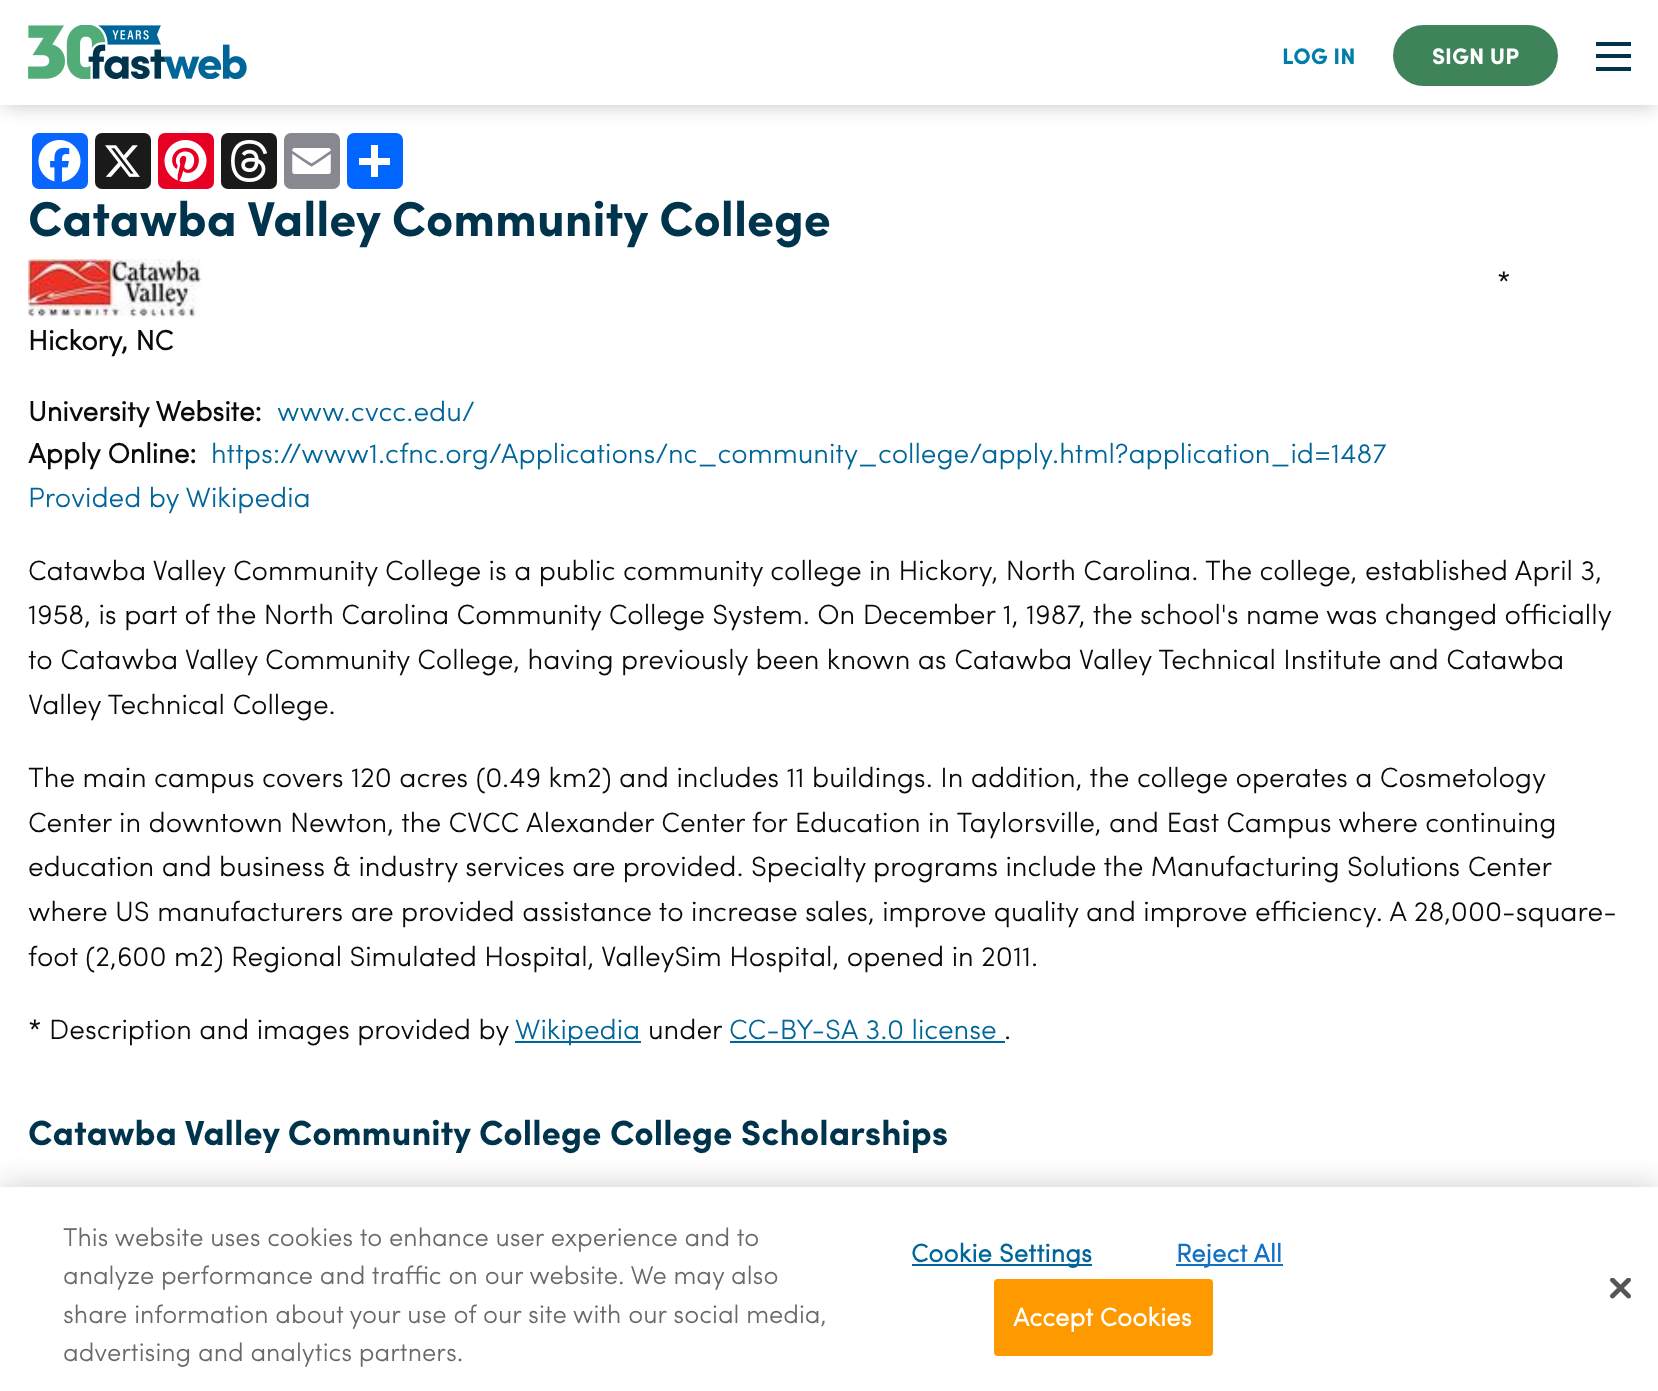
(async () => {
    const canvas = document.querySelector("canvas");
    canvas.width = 1658;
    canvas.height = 1391;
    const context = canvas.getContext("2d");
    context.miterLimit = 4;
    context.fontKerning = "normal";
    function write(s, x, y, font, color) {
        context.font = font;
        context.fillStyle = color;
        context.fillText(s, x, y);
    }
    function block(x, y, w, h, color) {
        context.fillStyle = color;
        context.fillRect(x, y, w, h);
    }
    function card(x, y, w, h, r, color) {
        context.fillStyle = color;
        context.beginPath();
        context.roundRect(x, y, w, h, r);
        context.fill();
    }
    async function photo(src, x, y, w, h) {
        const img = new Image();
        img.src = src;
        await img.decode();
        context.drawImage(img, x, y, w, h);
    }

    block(0, 0, 1658, 1391, "rgb(255, 255, 255)");
    card(32, 133, 56, 56, 7, "rgb(8, 102, 255)");
    card(95, 133, 56, 56, 7, "rgb(26, 26, 26)");
    card(158, 133, 56, 56, 7, "rgb(230, 0, 35)");
    card(221, 133, 56, 56, 7, "rgb(26, 26, 26)");
    card(284, 133, 56, 56, 7, "rgb(136, 137, 144)");
    card(347, 133, 56, 56, 7, "rgb(1, 102, 255)");
    context.fillStyle = "rgba(0, 0, 0, 0.2)";
    context.filter = "blur(9px)";
    context.beginPath();
    context.rect(4, 9, 1652, 98);
    context.fill();
    context.filter = "none";
    block(0, 0, 1658, 105, "rgb(255, 255, 255)");
    await photo("media/1.png", 28, 25, 219, 54);
    write("LOG IN", 1282, 64, "22.5px Sofia", "rgb(0, 126, 168)");
    card(1393, 25, 165, 61, 30.5, "rgb(63, 131, 91)");
    write("SIGN UP", 1432, 64, "22.5px Sofia", "rgb(255, 255, 255)");
    block(1596, 54, 35, 4, "rgb(0, 51, 76)");
    block(1596, 42, 35, 4, "rgb(0, 51, 76)");
    block(1596, 67, 35, 4, "rgb(0, 51, 76)");
    await photo("media/2.png", 38, 140, 43, 42);
    await photo("media/3.png", 105, 145, 35, 32);
    await photo("media/4.png", 164, 140, 43, 42);
    await photo("media/5.png", 231, 140, 37, 42);
    await photo("media/6.png", 292, 148, 39, 26);
    block(371, 145, 7, 32, "rgb(255, 255, 255)");
    block(359, 158, 31, 7, "rgb(255, 255, 255)");
    write("Catawba Valley Community College", 28, 236, "49px Sofia", "rgb(0, 51, 76)");
    await photo("media/7.png", 28, 259, 174, 59);
    write("*", 1497, 291, "28px 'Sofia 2'", "rgb(10, 10, 10)");
    write("Hickory, NC", 28, 350, "bold 28px Sofia", "rgb(10, 10, 10)");
    write("University Website:", 28, 421, "bold 28px Sofia", "rgb(10, 10, 10)");
    write("www.cvcc.edu/", 277, 421, "28px 'Sofia 2'", "rgb(0, 102, 153)");
    write("Apply Online:", 28, 463, "bold 28px Sofia", "rgb(10, 10, 10)");
    write("https://www1.cfnc.org/Applications/nc_community_college/apply.html?application_id=1487", 211, 463, "28px 'Sofia 2'", "rgb(0, 102, 153)");
    write("Provided by Wikipedia", 28, 507, "28px 'Sofia 2'", "rgb(0, 102, 153)");
    write("Catawba Valley Community College is a public community college in Hickory, North Carolina. The college, established April 3,", 28, 580, "28px 'Sofia 2'", "rgb(10, 10, 10)");
    write("1958, is part of the North Carolina Community College System. On December 1, 1987, the school's name was changed officially", 28, 624, "28px 'Sofia 2'", "rgb(10, 10, 10)");
    write("to Catawba Valley Community College, having previously been known as Catawba Valley Technical Institute and Catawba", 28, 669, "28px 'Sofia 2'", "rgb(10, 10, 10)");
    write("Valley Technical College.", 28, 714, "28px 'Sofia 2'", "rgb(10, 10, 10)");
    write("The main campus covers 120 acres (0.49 km2) and includes 11 buildings. In addition, the college operates a Cosmetology", 28, 787, "28px 'Sofia 2'", "rgb(10, 10, 10)");
    write("Center in downtown Newton, the CVCC Alexander Center for Education in Taylorsville, and East Campus where continuing", 28, 832, "28px 'Sofia 2'", "rgb(10, 10, 10)");
    write("education and business & industry services are provided. Specialty programs include the Manufacturing Solutions Center", 28, 876, "28px 'Sofia 2'", "rgb(10, 10, 10)");
    write("where US manufacturers are provided assistance to increase sales, improve quality and improve efficiency. A 28,000-square-", 28, 921, "28px 'Sofia 2'", "rgb(10, 10, 10)");
    write("foot (2,600 m2) Regional Simulated Hospital, ValleySim Hospital, opened in 2011.", 28, 966, "28px 'Sofia 2'", "rgb(10, 10, 10)");
    write("* Description and images provided by", 28, 1039, "28px 'Sofia 2'", "rgb(10, 10, 10)");
    block(515, 1041, 126, 2, "rgb(0, 102, 153)");
    write("Wikipedia", 515, 1039, "28px 'Sofia 2'", "rgb(0, 102, 153)");
    write("under", 648, 1039, "28px 'Sofia 2'", "rgb(10, 10, 10)");
    write("CC-BY-SA 3.0 license", 729, 1039, "28px 'Sofia 2'", "rgb(0, 102, 153)");
    block(730, 1041, 275, 2, "rgb(0, 102, 153)");
    write(".", 1004, 1039, "28px 'Sofia 2'", "rgb(10, 10, 10)");
    write("Catawba Valley Community College College Scholarships", 28, 1145, "35px Sofia", "rgb(0, 51, 76)");
    context.fillStyle = "rgba(0, 0, 0, 0.2)";
    context.filter = "blur(16px)";
    context.beginPath();
    context.rect(0, 1187, 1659, 204);
    context.fill();
    context.filter = "none";
    block(0, 1187, 1658, 204, "rgb(255, 255, 255)");
    write("This website uses cookies to enhance user experience and to", 63, 1246, "25.6px 'Sofia 2'", "rgb(105, 105, 105)");
    write("analyze performance and traffic on our website. We may also", 63, 1284, "25.6px 'Sofia 2'", "rgb(105, 105, 105)");
    write("share information about your use of our site with our social media,", 63, 1323, "25.6px 'Sofia 2'", "rgb(105, 105, 105)");
    write("advertising and analytics partners.", 63, 1361, "25.6px 'Sofia 2'", "rgb(105, 105, 105)");
    block(912, 1264, 180, 2, "rgb(0, 102, 153)");
    context.letterSpacing = "0.25px";
    write("Cookie Settings", 911, 1262, "bold 25.6px Sofia", "rgb(0, 102, 153)");
    block(1176, 1264, 107, 2, "rgb(19, 113, 195)");
    write("Reject All", 1176, 1262, "bold 25.6px Sofia", "rgb(19, 113, 195)");
    context.fillStyle = "rgb(255, 153, 0)";
    context.beginPath();
    context.roundRect(995, 1280, 217, 75, 3);
    context.fill();
    context.strokeStyle = "rgb(255, 153, 0)";
    context.lineWidth = 2;
    context.stroke();
    write("Accept Cookies", 1013, 1326, "bold 25.6px Sofia", "rgb(255, 255, 255)");
    await photo("media/8.png", 1610, 1278, 21, 21);
})();
